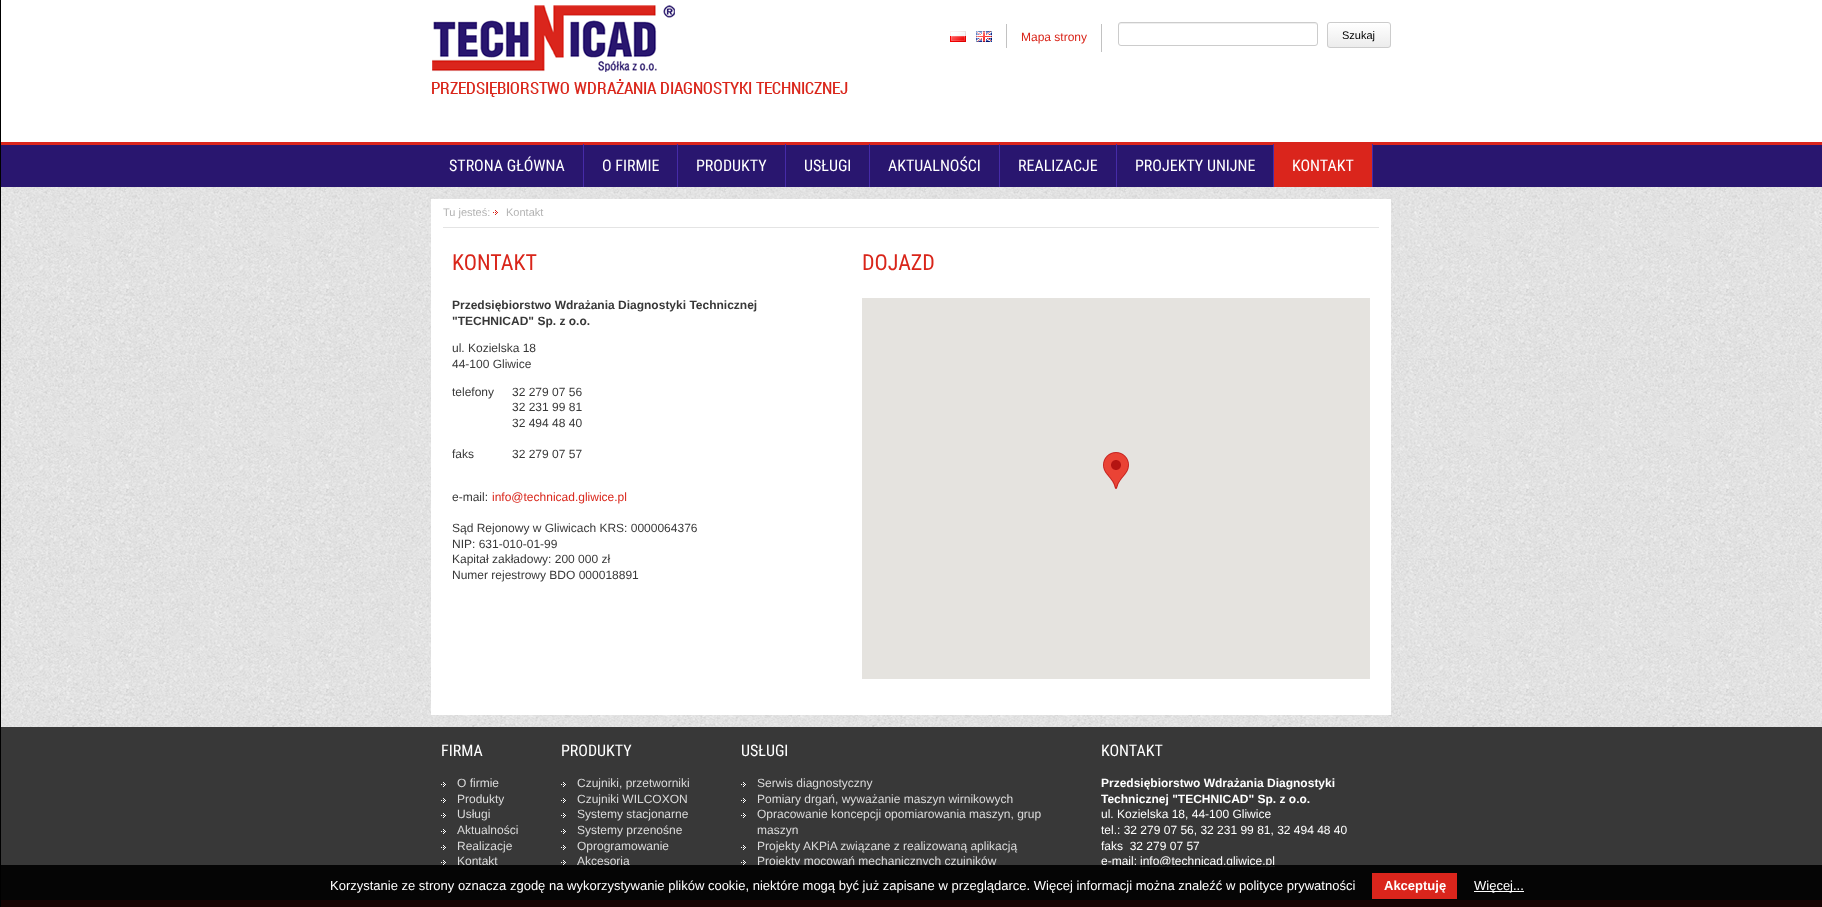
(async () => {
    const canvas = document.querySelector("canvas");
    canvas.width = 1822;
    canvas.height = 907;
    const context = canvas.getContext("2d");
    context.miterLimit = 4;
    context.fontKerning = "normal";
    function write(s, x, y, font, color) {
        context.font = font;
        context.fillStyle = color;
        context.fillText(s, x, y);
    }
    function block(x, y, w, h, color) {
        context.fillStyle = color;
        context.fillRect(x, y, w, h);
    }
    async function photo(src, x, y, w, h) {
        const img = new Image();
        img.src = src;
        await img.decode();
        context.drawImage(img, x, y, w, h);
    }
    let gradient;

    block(0, 0, 1822, 907, "rgb(255, 255, 255)");
    await photo("media/1.png", 1, 187, 1821, 540);
    block(0, 900, 1822, 7, "rgb(217, 37, 26)");
    block(0, 0, 1, 907, "rgb(0, 0, 0)");
    await photo("media/2.png", 1, 142, 1821, 45);
    await photo("media/3.png", 432, 5, 416, 92);
    block(1006, 24, 1, 24, "rgb(194, 194, 194)");
    await photo("media/4.png", 950, 31, 16, 11);
    await photo("media/5.png", 976, 31, 16, 11);
    block(1101, 24, 1, 28, "rgb(194, 194, 194)");
    write("Mapa strony", 1021, 41, "12px Liberation Sans", "rgb(217, 37, 26)");
    context.fillStyle = "rgb(238, 238, 238)";
    context.beginPath();
    context.moveTo(1121, 24);
    context.lineTo(1315, 24);
    context.lineTo(1317, 25);
    context.lineTo(1317, 26);
    context.bezierCurveTo(1317, 25, 1317, 23, 1315, 23);
    context.lineTo(1121, 23);
    context.bezierCurveTo(1119, 23, 1119, 25, 1119, 26);
    context.bezierCurveTo(1119, 25, 1120, 24, 1121, 24);
    context.closePath();
    context.fill();
    context.beginPath();
    context.roundRect(1118.5, 22.5, 199, 23, 2.5);
    context.strokeStyle = "rgb(204, 204, 204)";
    context.stroke();
    context.save();
    context.beginPath();
    context.roundRect(1327, 22, 64, 26, 3);
    context.clip();
    gradient = context.createLinearGradient(1359, 23, 1359, 47);
    gradient.addColorStop(0, "rgb(255, 255, 255)");
    gradient.addColorStop(1, "rgb(236, 236, 236)");
    context.fillStyle = gradient;
    context.fillRect(1327, 23, 64, 24);
    context.restore();
    context.beginPath();
    context.roundRect(1327.5, 22.5, 63, 25, 2.5);
    context.stroke();
    write("Szukaj", 1342, 39, "11px Liberation Sans", "rgb(0, 0, 0)");
    block(583, 144, 1, 43, "rgb(70, 43, 168)");
    write("STRONA GŁÓWNA", 449, 171, "16px Roboto Condensed", "rgb(255, 255, 255)");
    block(677, 144, 1, 43, "rgb(70, 43, 168)");
    write("O FIRMIE", 602, 171, "16px Roboto Condensed", "rgb(255, 255, 255)");
    block(785, 144, 1, 43, "rgb(70, 43, 168)");
    write("PRODUKTY", 696, 171, "16px Roboto Condensed", "rgb(255, 255, 255)");
    block(869, 144, 1, 43, "rgb(70, 43, 168)");
    write("USŁUGI", 804, 171, "16px Roboto Condensed", "rgb(255, 255, 255)");
    block(999, 144, 1, 43, "rgb(70, 43, 168)");
    write("AKTUALNOŚCI", 888, 171, "16px Roboto Condensed", "rgb(255, 255, 255)");
    block(1116, 144, 1, 43, "rgb(70, 43, 168)");
    write("REALIZACJE", 1018, 171, "16px Roboto Condensed", "rgb(255, 255, 255)");
    block(1273, 144, 1, 43, "rgb(70, 43, 168)");
    write("PROJEKTY UNIJNE", 1135, 171, "16px Roboto Condensed", "rgb(255, 255, 255)");
    block(1372, 144, 1, 43, "rgb(70, 43, 168)");
    block(1274, 145, 98, 42, "rgb(218, 37, 28)");
    write("KONTAKT", 1292, 171, "16px Roboto Condensed", "rgb(255, 255, 255)");
    block(431, 199, 960, 516, "rgb(255, 255, 255)");
    block(443, 227, 936, 1, "rgb(228, 228, 228)");
    write("Tu jesteś:", 443, 216, "11px Liberation Sans", "rgb(179, 179, 179)");
    await photo("media/6.png", 493, 210, 5, 5);
    write("Kontakt", 506, 216, "11px Liberation Sans", "rgb(179, 179, 179)");
    write("KONTAKT", 452, 270, "22px Roboto Condensed", "rgb(217, 37, 26)");
    write("Przedsiębiorstwo Wdrażania Diagnostyki Technicznej", 452, 309, "bold 12px Liberation Sans", "rgb(56, 56, 56)");
    write("\"TECHNICAD\" Sp. z o.o.", 452, 325, "bold 12px Liberation Sans", "rgb(56, 56, 56)");
    write("ul. Kozielska 18", 452, 352, "12px Liberation Sans", "rgb(56, 56, 56)");
    write("44-100 Gliwice", 452, 368, "12px Liberation Sans", "rgb(56, 56, 56)");
    write("telefony", 452, 396, "12px Liberation Sans", "rgb(56, 56, 56)");
    write("32 279 07 56", 512, 396, "12px Liberation Sans", "rgb(56, 56, 56)");
    write("32 231 99 81", 512, 411, "12px Liberation Sans", "rgb(56, 56, 56)");
    write("32 494 48 40", 512, 427, "12px Liberation Sans", "rgb(56, 56, 56)");
    write("faks", 452, 458, "12px Liberation Sans", "rgb(56, 56, 56)");
    write("32 279 07 57", 512, 458, "12px Liberation Sans", "rgb(56, 56, 56)");
    write("e-mail:", 452, 501, "12px Liberation Sans", "rgb(56, 56, 56)");
    write("info@technicad.gliwice.pl", 492, 501, "12px Liberation Sans", "rgb(217, 37, 26)");
    write("Sąd Rejonowy w Gliwicach KRS: 0000064376", 452, 532, "12px Liberation Sans", "rgb(56, 56, 56)");
    write("NIP: 631-010-01-99", 452, 548, "12px Liberation Sans", "rgb(56, 56, 56)");
    write("Kapitał zakładowy: 200 000 zł", 452, 563, "12px Liberation Sans", "rgb(56, 56, 56)");
    write("Numer rejestrowy BDO 000018891", 452, 579, "12px Liberation Sans", "rgb(56, 56, 56)");
    write("DOJAZD", 862, 270, "22px Roboto Condensed", "rgb(217, 37, 26)");
    block(862, 298, 508, 381, "rgb(229, 227, 223)");
    await photo("media/7.png", 1103, 452, 26, 37);
    block(1, 727, 1821, 173, "rgb(56, 56, 56)");
    write("FIRMA", 441, 756, "16px Roboto Condensed", "rgb(255, 255, 255)");
    await photo("media/8.png", 441, 782, 5, 5);
    write("O firmie", 457, 787, "12px Liberation Sans", "rgb(219, 219, 219)");
    await photo("media/8.png", 441, 798, 5, 5);
    write("Produkty", 457, 803, "12px Liberation Sans", "rgb(219, 219, 219)");
    await photo("media/8.png", 441, 813, 5, 5);
    write("Usługi", 457, 818, "12px Liberation Sans", "rgb(219, 219, 219)");
    await photo("media/8.png", 441, 829, 5, 5);
    write("Aktualności", 457, 834, "12px Liberation Sans", "rgb(219, 219, 219)");
    await photo("media/8.png", 441, 845, 5, 5);
    write("Realizacje", 457, 850, "12px Liberation Sans", "rgb(219, 219, 219)");
    await photo("media/8.png", 441, 860, 5, 5);
    write("Kontakt", 457, 865, "12px Liberation Sans", "rgb(219, 219, 219)");
    write("PRODUKTY", 561, 756, "16px Roboto Condensed", "rgb(255, 255, 255)");
    await photo("media/8.png", 561, 782, 5, 5);
    write("Czujniki, przetworniki", 577, 787, "12px Liberation Sans", "rgb(219, 219, 219)");
    await photo("media/8.png", 561, 798, 5, 5);
    write("Czujniki WILCOXON", 577, 803, "12px Liberation Sans", "rgb(219, 219, 219)");
    await photo("media/8.png", 561, 813, 5, 5);
    write("Systemy stacjonarne", 577, 818, "12px Liberation Sans", "rgb(219, 219, 219)");
    await photo("media/8.png", 561, 829, 5, 5);
    write("Systemy przenośne", 577, 834, "12px Liberation Sans", "rgb(219, 219, 219)");
    await photo("media/8.png", 561, 845, 5, 5);
    write("Oprogramowanie", 577, 850, "12px Liberation Sans", "rgb(219, 219, 219)");
    await photo("media/8.png", 561, 860, 5, 5);
    write("Akcesoria", 577, 865, "12px Liberation Sans", "rgb(219, 219, 219)");
    write("USŁUGI", 741, 756, "16px Roboto Condensed", "rgb(255, 255, 255)");
    await photo("media/8.png", 741, 782, 5, 5);
    write("Serwis diagnostyczny", 757, 787, "12px Liberation Sans", "rgb(219, 219, 219)");
    await photo("media/8.png", 741, 798, 5, 5);
    write("Pomiary drgań, wyważanie maszyn wirnikowych", 757, 803, "12px Liberation Sans", "rgb(219, 219, 219)");
    await photo("media/8.png", 741, 813, 5, 5);
    write("Opracowanie koncepcji opomiarowania maszyn, grup", 757, 818, "12px Liberation Sans", "rgb(219, 219, 219)");
    write("maszyn", 757, 834, "12px Liberation Sans", "rgb(219, 219, 219)");
    await photo("media/8.png", 741, 845, 5, 5);
    write("Projekty AKPiA związane z realizowaną aplikacją", 757, 850, "12px Liberation Sans", "rgb(219, 219, 219)");
    await photo("media/8.png", 741, 860, 5, 5);
    write("Projekty mocowań mechanicznych czujników", 757, 865, "12px Liberation Sans", "rgb(219, 219, 219)");
    write("KONTAKT", 1101, 756, "16px Roboto Condensed", "rgb(255, 255, 255)");
    write("Przedsiębiorstwo Wdrażania Diagnostyki", 1101, 787, "bold 12px Liberation Sans", "rgb(255, 255, 255)");
    write("Technicznej \"TECHNICAD\" Sp. z o.o.", 1101, 803, "bold 12px Liberation Sans", "rgb(255, 255, 255)");
    write("ul. Kozielska 18, 44-100 Gliwice", 1101, 818, "12px Liberation Sans", "rgb(255, 255, 255)");
    write("tel.: 32 279 07 56, 32 231 99 81, 32 494 48 40", 1101, 834, "12px Liberation Sans", "rgb(255, 255, 255)");
    write("faks  32 279 07 57", 1101, 850, "12px Liberation Sans", "rgb(255, 255, 255)");
    write("e-mail:", 1101, 865, "12px Liberation Sans", "rgb(255, 255, 255)");
    block(1140, 866, 135, 1, "rgb(255, 255, 255)");
    write("info@technicad.gliwice.pl", 1140, 865, "12px Liberation Sans", "rgb(255, 255, 255)");
    block(1, 865, 1821, 42, "rgba(0, 0, 0, 0.9)");
    write("Korzystanie ze strony oznacza zgodę na wykorzystywanie plików cookie, niektóre mogą być już zapisane w przeglądarce. Więcej informacji można znaleźć w polityce prywatności", 330, 890, "13px Liberation Sans", "rgb(255, 255, 255)");
    block(1372, 873, 85, 26, "rgb(218, 37, 28)");
    write("Akceptuję", 1384, 890, "bold 13px Liberation Sans", "rgb(255, 255, 255)");
    block(1474, 891, 50, 1, "rgb(255, 255, 255)");
    write("Więcej...", 1474, 890, "13px Liberation Sans", "rgb(255, 255, 255)");
})();
